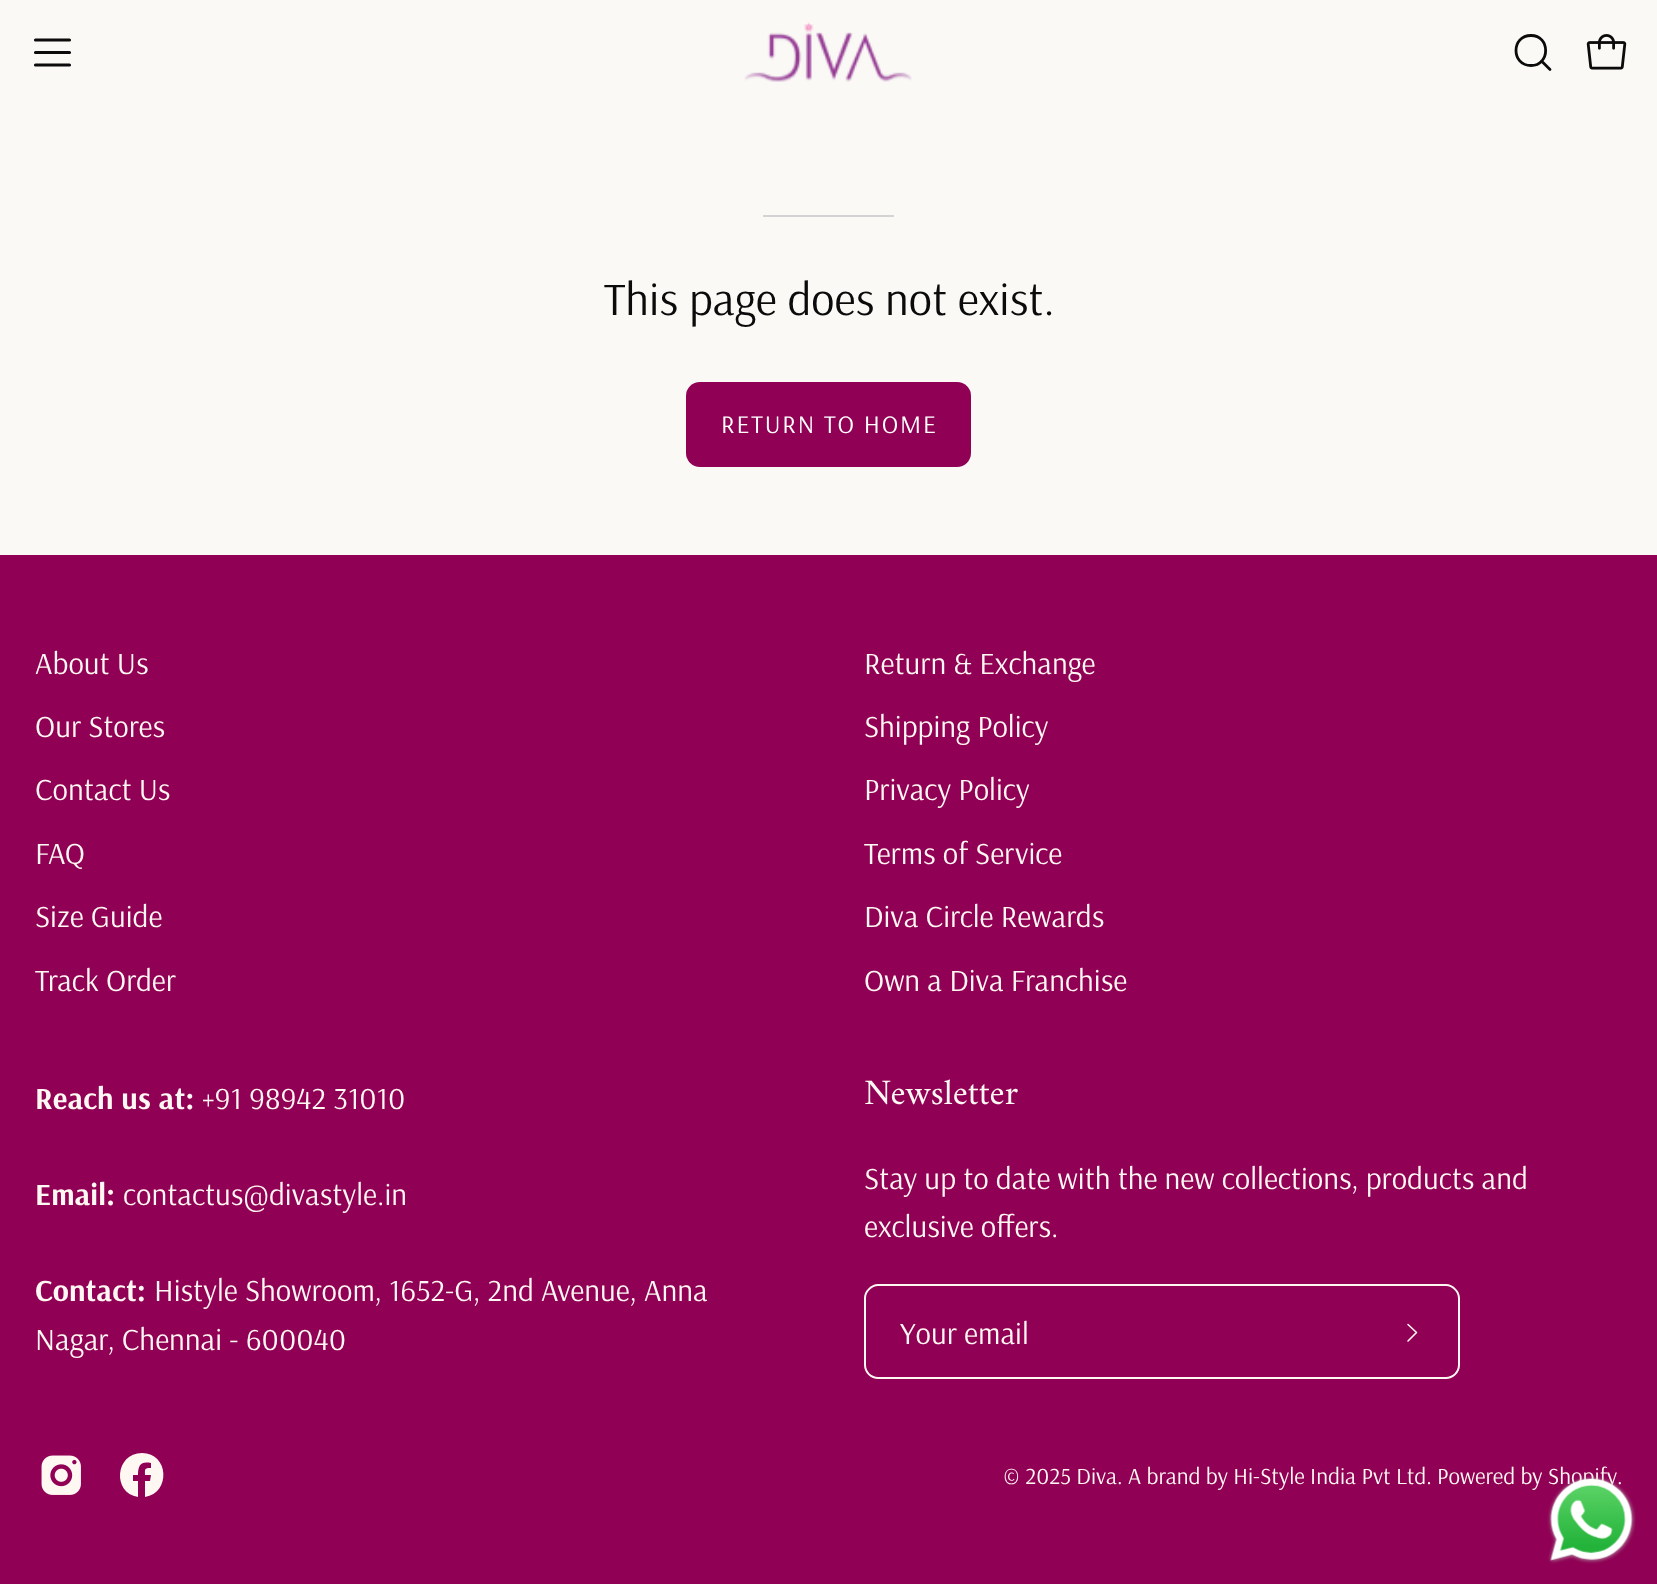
(async () => {
    const canvas = document.querySelector("canvas");
    canvas.width = 1657;
    canvas.height = 1584;
    const context = canvas.getContext("2d");
    context.miterLimit = 4;
    context.fontKerning = "normal";
    function write(s, x, y, font, color) {
        context.font = font;
        context.fillStyle = color;
        context.fillText(s, x, y);
    }
    function block(x, y, w, h, color) {
        context.fillStyle = color;
        context.fillRect(x, y, w, h);
    }
    function card(x, y, w, h, r, color) {
        context.fillStyle = color;
        context.beginPath();
        context.roundRect(x, y, w, h, r);
        context.fill();
    }
    async function photo(src, x, y, w, h) {
        const img = new Image();
        img.src = src;
        await img.decode();
        context.drawImage(img, x, y, w, h);
    }

    block(0, 0, 1657, 1584, "rgb(250, 249, 246)");
    context.beginPath();
    context.moveTo(35.5, 52.5);
    context.lineTo(69.5, 52.5);
    context.moveTo(35.5, 40);
    context.lineTo(69.5, 40);
    context.moveTo(35.5, 65);
    context.lineTo(69.5, 65);
    context.strokeStyle = "rgb(11, 11, 11)";
    context.lineWidth = 3.1;
    context.lineCap = "round";
    context.lineJoin = "round";
    context.stroke();
    await photo("media/1.png", 744, 22, 168, 60);
    context.beginPath();
    context.moveTo(1531, 65.5);
    context.bezierCurveTo(1550.5, 65.5, 1550.5, 35.5, 1531, 35.5);
    context.bezierCurveTo(1511, 35.5, 1511, 65.5, 1531, 65.5);
    context.closePath();
    context.moveTo(1541.5, 61);
    context.lineTo(1550, 69.5);
    context.lineWidth = 2.8;
    context.stroke();
    await photo("media/2.png", 1586, 34, 41, 36);
    block(763, 215, 131, 2, "rgb(211, 211, 211)");
    write("This page does not exist.", 604, 315, "46.25px Arsenal", "rgb(11, 11, 11)");
    card(686, 382, 285, 85, 14, "rgb(144, 0, 85)");
    context.letterSpacing = "1.9px";
    write("RETURN TO HOME", 721, 433, "25.25px Arsenal", "rgb(255, 255, 255)");
    block(0, 555, 1657, 1029, "rgb(144, 0, 85)");
    context.letterSpacing = "0px";
    write("About Us", 35, 674, "30.8px Arsenal", "rgb(255, 247, 242)");
    write("Our Stores", 35, 737, "30.8px Arsenal", "rgb(255, 247, 242)");
    write("Contact Us", 35, 800, "30.8px Arsenal", "rgb(255, 247, 242)");
    write("FAQ", 35, 864, "30.8px Arsenal", "rgb(255, 247, 242)");
    write("Size Guide", 35, 927, "30.8px Arsenal", "rgb(255, 247, 242)");
    write("Track Order", 35, 991, "30.8px Arsenal", "rgb(255, 247, 242)");
    write("Return & Exchange", 864, 674, "30.8px Arsenal", "rgb(255, 247, 242)");
    write("Shipping Policy", 864, 737, "30.8px Arsenal", "rgb(255, 247, 242)");
    write("Privacy Policy", 864, 800, "30.8px Arsenal", "rgb(255, 247, 242)");
    write("Terms of Service", 864, 864, "30.8px Arsenal", "rgb(255, 247, 242)");
    write("Diva Circle Rewards", 864, 927, "30.8px Arsenal", "rgb(255, 247, 242)");
    write("Own a Diva Franchise", 864, 991, "30.8px Arsenal", "rgb(255, 247, 242)");
    write("Reach us at:", 35, 1109, "bold 30.8px Arsenal", "rgb(255, 247, 242)");
    write("+91 98942 31010", 202, 1109, "30.8px Arsenal", "rgb(255, 247, 242)");
    write("Email:", 35, 1205, "bold 30.8px Arsenal", "rgb(255, 247, 242)");
    write("contactus@divastyle.in", 123, 1205, "30.8px Arsenal", "rgb(255, 247, 242)");
    write("Contact:", 35, 1301, "bold 30.8px Arsenal", "rgb(255, 247, 242)");
    write("Histyle Showroom, 1652-G, 2nd Avenue, Anna", 154, 1301, "30.8px Arsenal", "rgb(255, 247, 242)");
    write("Nagar, Chennai - 600040", 35, 1350, "30.8px Arsenal", "rgb(255, 247, 242)");
    write("Newsletter", 864, 1104, "36px Amiri", "rgb(255, 247, 242)");
    write("Stay up to date with the new collections, products and", 864, 1189, "30.8px Arsenal", "rgb(255, 247, 242)");
    write("exclusive offers.", 864, 1237, "30.8px Arsenal", "rgb(255, 247, 242)");
    context.beginPath();
    context.moveTo(878, 1284);
    context.lineTo(1365, 1284);
    context.lineTo(1365, 1379);
    context.lineTo(878, 1379);
    context.bezierCurveTo(871, 1379, 864, 1373, 864, 1365);
    context.lineTo(864, 1298);
    context.bezierCurveTo(864, 1291, 871, 1284, 878, 1284);
    context.closePath();
    context.moveTo(878, 1286);
    context.lineTo(1365, 1286);
    context.lineTo(1365, 1377);
    context.lineTo(878, 1377);
    context.bezierCurveTo(872, 1377, 866, 1372, 866, 1365);
    context.lineTo(866, 1298);
    context.bezierCurveTo(866, 1292, 872, 1286, 878, 1286);
    context.closePath();
    context.fill("evenodd");
    write("Your email", 900, 1344, "30.8px Arsenal", "rgb(255, 247, 242)");
    context.beginPath();
    context.moveTo(1365, 1284);
    context.lineTo(1446, 1284);
    context.bezierCurveTo(1453, 1284, 1460, 1291, 1460, 1298);
    context.lineTo(1460, 1365);
    context.bezierCurveTo(1460, 1373, 1453, 1379, 1446, 1379);
    context.lineTo(1365, 1379);
    context.closePath();
    context.moveTo(1365, 1286);
    context.lineTo(1446, 1286);
    context.bezierCurveTo(1452, 1286, 1458, 1292, 1458, 1298);
    context.lineTo(1458, 1365);
    context.bezierCurveTo(1458, 1372, 1452, 1377, 1446, 1377);
    context.lineTo(1365, 1377);
    context.closePath();
    context.fill("evenodd");
    context.beginPath();
    context.moveTo(1408, 1324.5);
    context.lineTo(1416.5, 1332.5);
    context.lineTo(1408, 1341);
    context.strokeStyle = "rgb(255, 247, 242)";
    context.lineWidth = 1.6;
    context.stroke();
    await photo("media/3.png", 41, 1455, 40, 40);
    context.beginPath();
    context.moveTo(142, 1453);
    context.bezierCurveTo(115, 1453, 112, 1493, 138, 1497);
    context.lineTo(138, 1481);
    context.lineTo(133, 1481);
    context.lineTo(133, 1475);
    context.lineTo(138, 1475);
    context.bezierCurveTo(138, 1465, 141, 1461, 151, 1463);
    context.lineTo(151, 1468);
    context.bezierCurveTo(144, 1468, 145, 1469, 145, 1475);
    context.lineTo(151, 1475);
    context.lineTo(150, 1481);
    context.lineTo(145, 1481);
    context.lineTo(145, 1497);
    context.bezierCurveTo(171, 1493, 169, 1453, 142, 1453);
    context.closePath();
    context.fill();
    write("© 2025 Diva. A brand by Hi-Style India Pvt Ltd.", 1003, 1484, "23.1px Arsenal", "rgb(255, 247, 242)");
    write("Powered by Shopify", 1437, 1484, "23.1px Arsenal", "rgb(255, 247, 242)");
    write(".", 1617, 1484, "23.1px Arsenal", "rgb(255, 247, 242)");
    await photo("media/4.png", 1547, 1475, 89, 89);
})();
